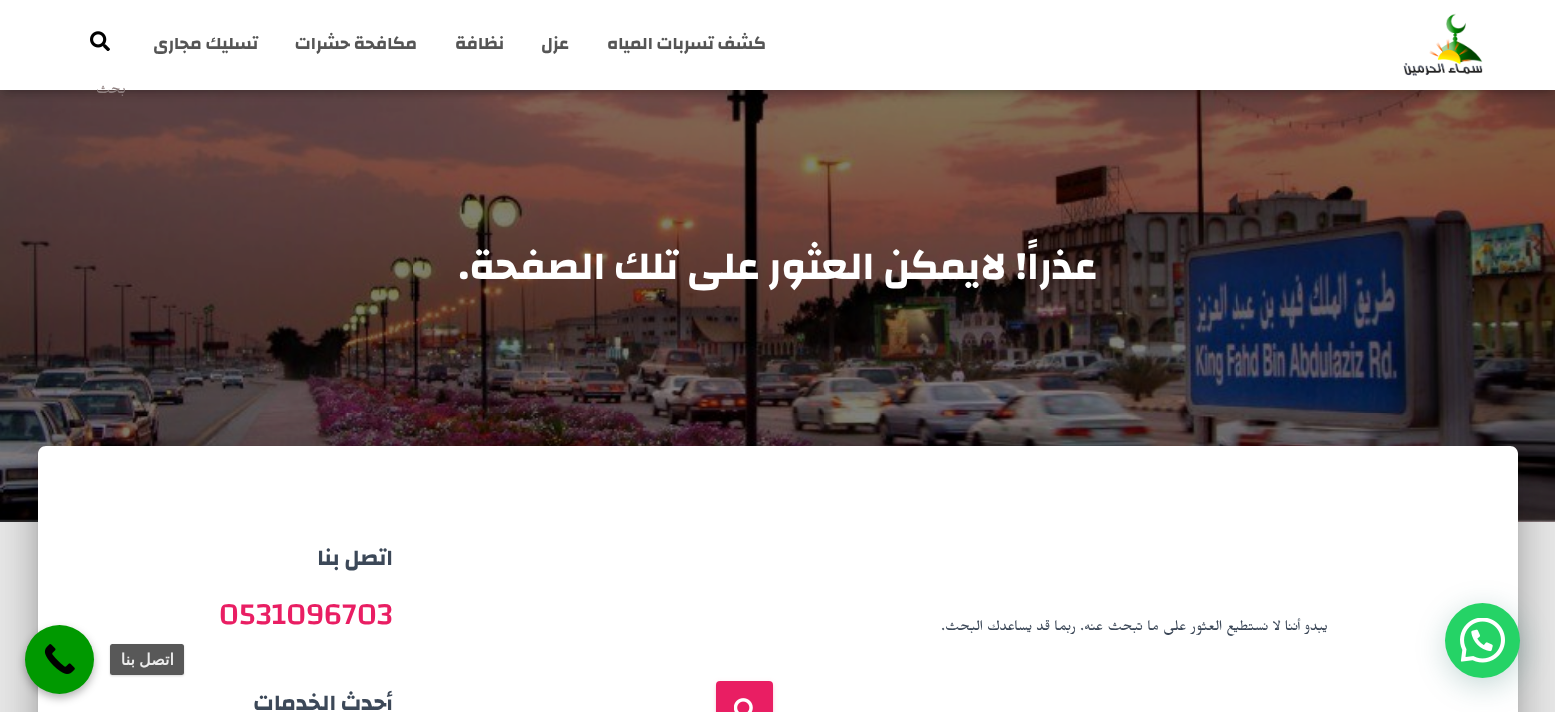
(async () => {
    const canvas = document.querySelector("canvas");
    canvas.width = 1555;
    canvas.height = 712;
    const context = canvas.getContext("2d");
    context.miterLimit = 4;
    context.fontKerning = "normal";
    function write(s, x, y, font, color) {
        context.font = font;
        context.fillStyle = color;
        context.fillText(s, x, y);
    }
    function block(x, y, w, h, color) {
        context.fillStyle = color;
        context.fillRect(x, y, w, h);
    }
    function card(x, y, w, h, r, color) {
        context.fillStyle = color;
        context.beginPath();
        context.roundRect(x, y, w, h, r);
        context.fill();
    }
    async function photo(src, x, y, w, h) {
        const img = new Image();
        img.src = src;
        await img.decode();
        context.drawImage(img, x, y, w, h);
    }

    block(0, 0, 1555, 712, "rgb(229, 229, 229)");
    await photo("media/3.png", 0, 90, 1555, 432);
    context.fillStyle = "rgba(0, 0, 0, 0.1)";
    context.filter = "blur(3px)";
    context.beginPath();
    context.rect(3, 8, 1550, 85);
    context.fill();
    context.filter = "none";
    context.fillStyle = "rgba(0, 0, 0, 0.12)";
    context.filter = "blur(6px)";
    context.beginPath();
    context.rect(0, 1, 1555, 90);
    context.fill();
    context.filter = "none";
    context.fillStyle = "rgba(0, 0, 0, 0.42)";
    context.filter = "blur(6px)";
    context.beginPath();
    context.rect(8, 9, 1540, 75);
    context.fill();
    context.filter = "none";
    block(0, 0, 1555, 90, "rgb(255, 255, 255)");
    await photo("media/1.png", 1403, 13, 80, 63);
    context.direction = "rtl";
    write("كشف تسربات المياه", 766, 49, "bold 17.5px Changa", "rgb(85, 85, 85)");
    write("عزل", 569, 49, "bold 17.5px Changa", "rgb(85, 85, 85)");
    write("نظافة", 504, 49, "bold 17.5px Changa", "rgb(85, 85, 85)");
    write("مكافحة حشرات", 417, 49, "bold 17.5px Changa", "rgb(85, 85, 85)");
    write("تسليك مجارى", 258, 49, "bold 17.5px Changa", "rgb(85, 85, 85)");
    await photo("media/2.png", 90, 31, 20, 20);
    write("بحث", 126, 93, "17.5px Mirza", "rgb(142, 127, 127)");
    write("عذراً! لايمكن العثور على تلك الصفحة.", 1097, 279, "bold 40px Changa", "rgb(255, 255, 255)");
    context.fillStyle = "rgba(0, 0, 0, 0.2)";
    context.filter = "blur(6px)";
    context.beginPath();
    context.roundRect(44, 463, 1467, 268, 1);
    context.fill();
    context.filter = "none";
    context.fillStyle = "rgba(0, 0, 0, 0.12)";
    context.filter = "blur(19px)";
    context.beginPath();
    context.roundRect(31, 448, 1493, 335, 14);
    context.fill();
    context.filter = "none";
    context.fillStyle = "rgba(0, 0, 0, 0.14)";
    context.filter = "blur(15px)";
    context.beginPath();
    context.roundRect(35, 464, 1485, 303, 10);
    context.fill();
    context.filter = "none";
    context.fillStyle = "rgb(255, 255, 255)";
    context.beginPath();
    context.moveTo(46, 446);
    context.lineTo(1510, 446);
    context.bezierCurveTo(1514.5, 446, 1518, 449.5, 1518, 454);
    context.lineTo(1518, 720);
    context.lineTo(38, 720);
    context.lineTo(38, 454);
    context.bezierCurveTo(38, 449.5, 41.5, 446, 46, 446);
    context.closePath();
    context.fill();
    context.fillStyle = "rgba(7, 94, 84, 0.24)";
    context.filter = "blur(15px)";
    context.beginPath();
    context.roundRect(1446, 610, 75, 75, 37.5);
    context.fill();
    context.filter = "none";
    context.fillStyle = "rgb(37, 211, 102)";
    context.beginPath();
    context.arc(1482.5, 640.5, 37.5, 0, Math.PI * 2);
    context.fill();
    await photo("media/4.png", 1460, 618, 45, 45);
    context.wordSpacing = "-0.4px";
    write("يبدو أننا لا نستطيع العثور على ما تبحث عنه. ربما قد يساعدك البحث.", 1328, 630, "17.5px Mirza", "rgb(60, 72, 88)");
    context.fillStyle = "rgba(233, 30, 99, 0.12)";
    context.filter = "blur(3px)";
    context.beginPath();
    context.roundRect(716, 683, 57, 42, 4);
    context.fill();
    context.filter = "none";
    context.fillStyle = "rgba(233, 30, 99, 0.14)";
    context.filter = "blur(1px)";
    context.beginPath();
    context.roundRect(716, 684, 57, 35, 4);
    context.fill();
    context.filter = "none";
    card(716, 681, 57, 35, 4, "rgb(233, 30, 99)");
    await photo("media/5.png", 734, 698, 19, 14);
    context.wordSpacing = "0px";
    write("اتصل بنا", 393, 565, "bold 22.5px Changa", "rgb(60, 72, 88)");
    context.direction = "ltr";
    write("0531096703", 219, 624, "500 31.25px Changa", "rgb(233, 30, 99)");
    context.direction = "rtl";
    write("أحدث الخدمات", 393, 710, "bold 22.5px Changa", "rgb(60, 72, 88)");
    context.fillStyle = "rgba(0, 0, 0, 0.3)";
    context.filter = "blur(4px)";
    context.beginPath();
    context.roundRect(25, 629, 69, 69, 34.5);
    context.fill();
    context.filter = "none";
    context.fillStyle = "rgb(0, 153, 0)";
    context.beginPath();
    context.arc(59.5, 659.5, 34.5, 0, Math.PI * 2);
    context.fill();
    await photo("media/6.png", 44, 644, 31, 30);
    context.save();
    context.beginPath();
    context.moveTo(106, 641);
    context.lineTo(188, 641);
    context.lineTo(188, 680);
    context.lineTo(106, 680);
    context.closePath();
    context.moveTo(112.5, 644);
    context.lineTo(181.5, 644);
    context.bezierCurveTo(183, 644, 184, 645, 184, 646.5);
    context.lineTo(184, 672.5);
    context.bezierCurveTo(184, 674, 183, 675, 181.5, 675);
    context.lineTo(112.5, 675);
    context.bezierCurveTo(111, 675, 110, 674, 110, 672.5);
    context.lineTo(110, 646.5);
    context.bezierCurveTo(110, 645, 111, 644, 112.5, 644);
    context.closePath();
    context.clip("evenodd");
    context.fillStyle = "rgba(0, 0, 0, 0.15)";
    context.filter = "blur(1px)";
    context.beginPath();
    context.roundRect(110, 645, 74, 31, 2.5);
    context.fill();
    context.filter = "none";
    context.restore();
    card(110, 644, 74, 31, 2.5, "rgba(70, 70, 70, 0.9)");
    context.wordSpacing = "-1px";
    write("اتصل بنا", 174, 665, "bold 16px DejaVu Sans", "rgb(236, 236, 236)");
})();
